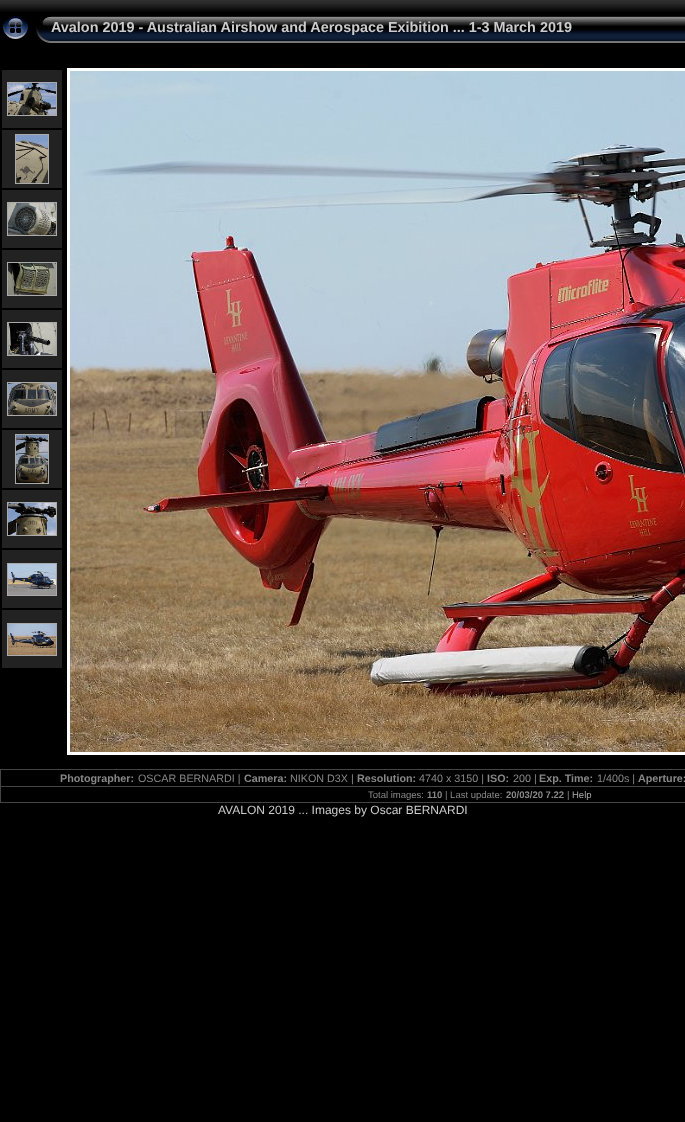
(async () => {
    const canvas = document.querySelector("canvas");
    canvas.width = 685;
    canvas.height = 1122;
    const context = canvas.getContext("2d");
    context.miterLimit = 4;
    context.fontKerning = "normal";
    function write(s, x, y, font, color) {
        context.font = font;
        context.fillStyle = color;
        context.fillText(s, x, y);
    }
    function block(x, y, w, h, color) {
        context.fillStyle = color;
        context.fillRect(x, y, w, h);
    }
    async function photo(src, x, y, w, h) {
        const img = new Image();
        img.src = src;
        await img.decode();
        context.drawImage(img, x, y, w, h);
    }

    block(0, 0, 685, 1122, "rgb(0, 0, 0)");
    await photo("media/1.png", 0, 0, 685, 12);
    await photo("media/2.png", 3, 16, 25, 23);
    await photo("media/3.png", 36, 16, 15, 27);
    await photo("media/4.png", 51, 16, 634, 27);
    write("Avalon 2019 - Australian Airshow and Aerospace Exibition ... 1-3 March 2019", 51, 32, "bold 14.4px Liberation Sans", "rgb(204, 204, 204)");
    block(2, 70, 60, 58, "rgb(34, 34, 34)");
    context.strokeStyle = "rgb(170, 170, 170)";
    context.strokeRect(7.5, 82.5, 49, 33);
    await photo("media/5.png", 8, 83, 48, 32);
    block(2, 130, 60, 58, "rgb(34, 34, 34)");
    context.strokeRect(15.5, 134.5, 33, 49);
    await photo("media/6.png", 16, 135, 32, 48);
    block(2, 190, 60, 58, "rgb(34, 34, 34)");
    context.strokeRect(7.5, 202.5, 49, 33);
    await photo("media/7.png", 8, 203, 48, 32);
    block(2, 250, 60, 58, "rgb(34, 34, 34)");
    context.strokeRect(7.5, 262.5, 49, 33);
    await photo("media/8.png", 8, 263, 48, 32);
    block(2, 310, 60, 58, "rgb(34, 34, 34)");
    context.strokeRect(7.5, 322.5, 49, 33);
    await photo("media/9.png", 8, 323, 48, 32);
    block(2, 370, 60, 58, "rgb(34, 34, 34)");
    context.strokeRect(7.5, 382.5, 49, 33);
    await photo("media/10.png", 8, 383, 48, 32);
    block(2, 430, 60, 58, "rgb(34, 34, 34)");
    context.strokeRect(15.5, 434.5, 33, 49);
    await photo("media/11.png", 16, 435, 32, 48);
    block(2, 490, 60, 58, "rgb(34, 34, 34)");
    context.strokeRect(7.5, 502.5, 49, 33);
    await photo("media/12.png", 8, 503, 48, 32);
    block(2, 550, 60, 58, "rgb(34, 34, 34)");
    context.strokeRect(7.5, 563.5, 49, 32);
    await photo("media/13.png", 8, 564, 48, 31);
    block(2, 610, 60, 58, "rgb(34, 34, 34)");
    context.strokeRect(7.5, 623.5, 49, 32);
    await photo("media/14.png", 8, 624, 48, 31);
    context.strokeStyle = "rgb(255, 255, 255)";
    context.lineWidth = 3;
    context.strokeRect(68.5, 69.5, 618, 684);
    await photo("media/15.png", 70, 71, 615, 681);
    block(0, 769, 685, 1, "rgb(68, 68, 68)");
    block(0, 802, 685, 1, "rgb(68, 68, 68)");
    block(0, 769, 1, 34, "rgb(68, 68, 68)");
    write("Photographer:", 60, 782, "bold 10.75px Liberation Sans", "rgb(136, 136, 136)");
    write("OSCAR BERNARDI |", 138, 782, "10.75px Liberation Sans", "rgb(136, 136, 136)");
    write("Camera:", 244, 782, "bold 10.75px Liberation Sans", "rgb(136, 136, 136)");
    write("NIKON D3X |", 290, 782, "10.75px Liberation Sans", "rgb(136, 136, 136)");
    write("Resolution:", 357, 782, "bold 10.75px Liberation Sans", "rgb(136, 136, 136)");
    write("4740 x 3150 |", 419, 782, "10.75px Liberation Sans", "rgb(136, 136, 136)");
    write("ISO:", 487, 782, "bold 10.75px Liberation Sans", "rgb(136, 136, 136)");
    write("200 |", 513, 782, "10.75px Liberation Sans", "rgb(136, 136, 136)");
    write("Exp. Time:", 539, 782, "bold 10.75px Liberation Sans", "rgb(136, 136, 136)");
    write("1/400s |", 597, 782, "10.75px Liberation Sans", "rgb(136, 136, 136)");
    write("Aperture:", 638, 782, "bold 10.75px Liberation Sans", "rgb(136, 136, 136)");
    block(0, 786, 685, 1, "rgb(68, 68, 68)");
    write("Total images:", 368, 798, "9.5px Liberation Sans", "rgb(136, 136, 136)");
    write("110", 427, 798, "bold 9.5px Liberation Sans", "rgb(136, 136, 136)");
    write("| Last update:", 445, 798, "9.5px Liberation Sans", "rgb(136, 136, 136)");
    write("20/03/20 7.22", 506, 798, "bold 9.5px Liberation Sans", "rgb(136, 136, 136)");
    write("|", 567, 798, "9.5px Liberation Sans", "rgb(136, 136, 136)");
    write("Help", 572, 798, "9.5px Liberation Sans", "rgb(170, 170, 170)");
    write("AVALON 2019 ... Images by Oscar BERNARDI", 218, 814, "12px Liberation Sans", "rgb(204, 204, 204)");
})();
